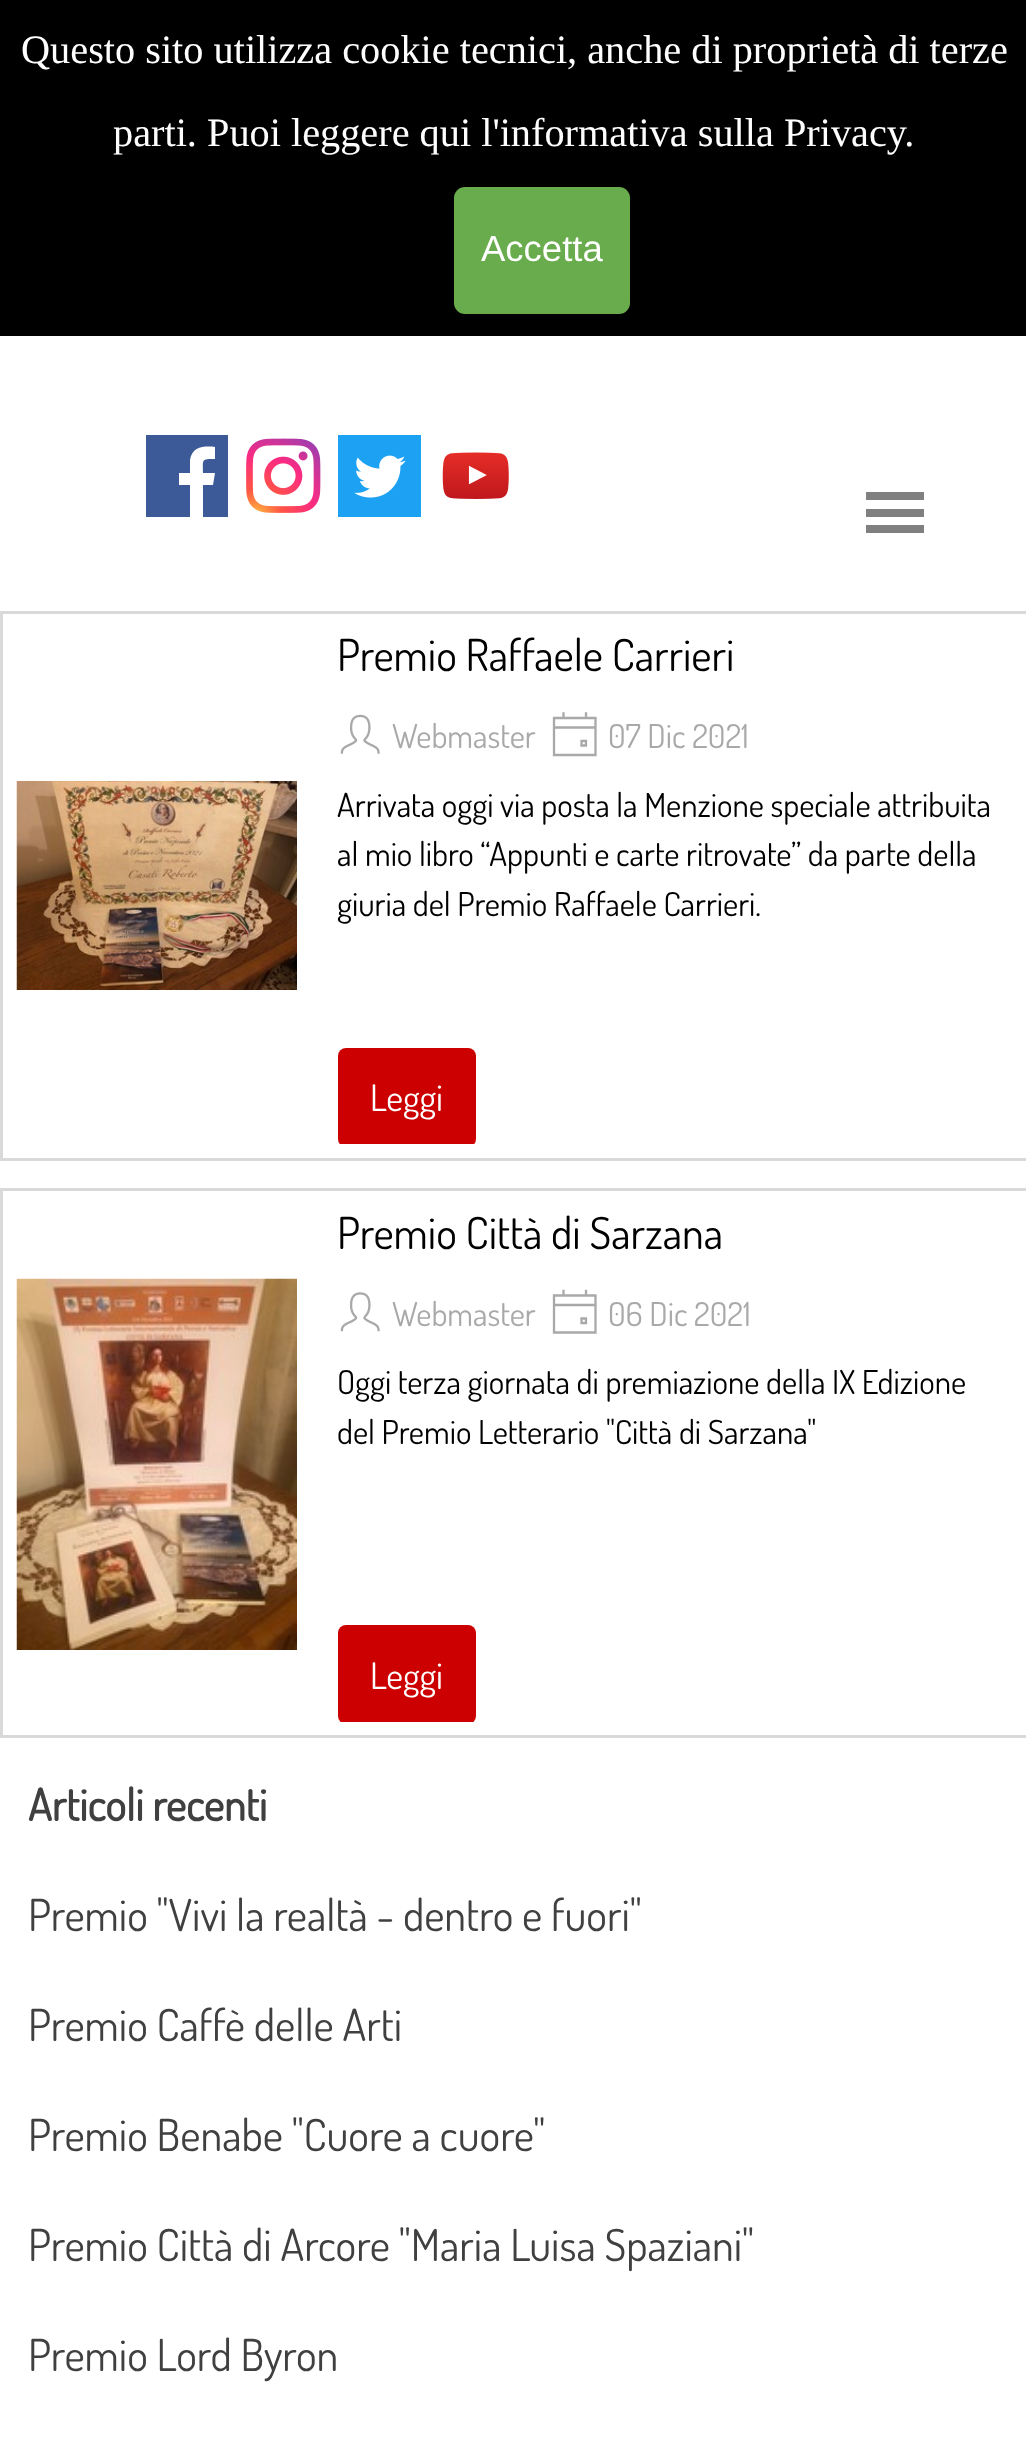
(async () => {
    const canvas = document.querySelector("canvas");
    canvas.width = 1026;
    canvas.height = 2462;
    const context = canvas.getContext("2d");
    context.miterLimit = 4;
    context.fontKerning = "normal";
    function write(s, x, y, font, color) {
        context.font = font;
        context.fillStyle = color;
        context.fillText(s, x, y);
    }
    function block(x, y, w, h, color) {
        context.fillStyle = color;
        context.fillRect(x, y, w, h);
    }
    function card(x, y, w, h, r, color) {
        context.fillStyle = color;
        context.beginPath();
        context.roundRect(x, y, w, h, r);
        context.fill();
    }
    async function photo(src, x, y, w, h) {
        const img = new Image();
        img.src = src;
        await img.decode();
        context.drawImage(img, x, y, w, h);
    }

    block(0, 0, 1026, 2462, "rgb(255, 255, 255)");
    block(0, 0, 1026, 336, "rgb(0, 0, 0)");
    write("Questo sito utilizza cookie tecnici, anche di proprietà di terze", 21, 63, "40.3px Liberation Serif", "rgb(255, 255, 255)");
    write("parti. Puoi leggere qui l'informativa sulla Privacy.", 113, 146, "40.3px Liberation Serif", "rgb(255, 255, 255)");
    card(454, 187, 176, 127, 11, "rgb(105, 172, 77)");
    write("Accetta", 481, 261, "36.5px Liberation Sans", "rgb(255, 255, 255)");
    block(146, 435, 82, 82, "rgb(61, 90, 152)");
    context.fillStyle = "rgb(255, 255, 255)";
    context.beginPath();
    context.moveTo(203, 517);
    context.lineTo(203, 485);
    context.lineTo(213, 485);
    context.lineTo(215, 473);
    context.lineTo(203, 473);
    context.bezierCurveTo(203, 459, 201, 459, 215, 459);
    context.lineTo(215, 447);
    context.bezierCurveTo(205, 446, 192, 446, 190, 460);
    context.lineTo(190, 473);
    context.lineTo(179, 473);
    context.lineTo(179, 485);
    context.lineTo(190, 485);
    context.lineTo(190, 517);
    context.closePath();
    context.fill();
    await photo("media/1.png", 246, 438, 75, 75);
    await photo("media/2.png", 338, 435, 83, 82);
    await photo("media/3.png", 442, 452, 67, 47);
    block(866, 492, 58, 8, "rgb(128, 128, 128)");
    block(866, 509, 58, 8, "rgb(128, 128, 128)");
    block(866, 525, 58, 8, "rgb(128, 128, 128)");
    context.strokeStyle = "rgb(217, 217, 217)";
    context.lineWidth = 3;
    context.strokeRect(1.5, 612.5, 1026, 547);
    write("Premio Raffaele Carrieri", 337, 671, "44px Dosis", "rgb(0, 0, 0)");
    await photo("media/4.png", 340, 714, 40, 40);
    write("Webmaster", 392, 748, "33px Dosis", "rgb(169, 169, 169)");
    context.beginPath();
    context.moveTo(554, 718);
    context.lineTo(595.5, 718);
    context.lineTo(595.5, 755);
    context.lineTo(554, 755);
    context.closePath();
    context.moveTo(595.5, 727.5);
    context.lineTo(554, 727.5);
    context.moveTo(563.5, 718);
    context.lineTo(563.5, 713.5);
    context.moveTo(586, 718);
    context.lineTo(586, 713.5);
    context.moveTo(581.5, 741);
    context.lineTo(586, 741);
    context.lineTo(586, 745.5);
    context.lineTo(581.5, 745.5);
    context.closePath();
    context.strokeStyle = "rgb(169, 169, 169)";
    context.lineWidth = 2.3;
    context.lineCap = "square";
    context.stroke();
    write("07 Dic 2021", 608, 748, "33px Dosis", "rgb(169, 169, 169)");
    await photo("media/5.png", 16, 781, 281, 209);
    write("Arrivata oggi via posta la Menzione speciale attribuita", 337, 817, "33px Dosis", "rgb(0, 0, 0)");
    write("al mio libro “Appunti e carte ritrovate” da parte della", 337, 866, "33px Dosis", "rgb(0, 0, 0)");
    write("giuria del Premio Raffaele Carrieri.", 337, 916, "33px Dosis", "rgb(0, 0, 0)");
    context.save();
    context.beginPath();
    context.rect(338, 1048, 660, 96);
    context.clip();
    card(338, 1048, 138, 99, 8, "rgb(204, 0, 0)");
    context.restore();
    write("Leggi", 370, 1111, "36.5px Dosis", "rgb(255, 255, 255)");
    context.strokeStyle = "rgb(217, 217, 217)";
    context.lineWidth = 3;
    context.strokeRect(1.5, 1189.5, 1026, 547);
    await photo("media/6.png", 16, 1278, 281, 372);
    write("Premio Città di Sarzana", 337, 1249, "44px Dosis", "rgb(0, 0, 0)");
    await photo("media/7.png", 340, 1292, 40, 40);
    write("Webmaster", 392, 1326, "33px Dosis", "rgb(169, 169, 169)");
    context.beginPath();
    context.moveTo(554, 1295.5);
    context.lineTo(595.5, 1295.5);
    context.lineTo(595.5, 1332.5);
    context.lineTo(554, 1332.5);
    context.closePath();
    context.moveTo(595.5, 1305);
    context.lineTo(554, 1305);
    context.moveTo(563.5, 1295.5);
    context.lineTo(563.5, 1291);
    context.moveTo(586, 1295.5);
    context.lineTo(586, 1291);
    context.moveTo(581.5, 1318.5);
    context.lineTo(586, 1318.5);
    context.lineTo(586, 1323);
    context.lineTo(581.5, 1323);
    context.closePath();
    context.strokeStyle = "rgb(169, 169, 169)";
    context.lineWidth = 2.3;
    context.stroke();
    write("06 Dic 2021", 608, 1326, "33px Dosis", "rgb(169, 169, 169)");
    write("Oggi terza giornata di premiazione della IX Edizione", 337, 1394, "33px Dosis", "rgb(0, 0, 0)");
    write("del Premio Letterario \"Città di Sarzana\"", 337, 1444, "33px Dosis", "rgb(0, 0, 0)");
    context.save();
    context.beginPath();
    context.rect(338, 1625, 660, 97);
    context.clip();
    card(338, 1625, 138, 99, 8, "rgb(204, 0, 0)");
    context.restore();
    write("Leggi", 370, 1689, "36.5px Dosis", "rgb(255, 255, 255)");
    write("Articoli recenti", 28, 1821, "bold 44px Dosis", "rgb(64, 64, 64)");
    write("Premio \"Vivi la realtà - dentro e fuori\"", 28, 1931, "44px Dosis", "rgb(64, 64, 64)");
    write("Premio Caffè delle Arti", 28, 2041, "44px Dosis", "rgb(64, 64, 64)");
    write("Premio Benabe \"Cuore a cuore\"", 28, 2151, "44px Dosis", "rgb(64, 64, 64)");
    write("Premio Città di Arcore \"Maria Luisa Spaziani\"", 28, 2261, "44px Dosis", "rgb(64, 64, 64)");
    write("Premio Lord Byron", 28, 2371, "44px Dosis", "rgb(64, 64, 64)");
})();
